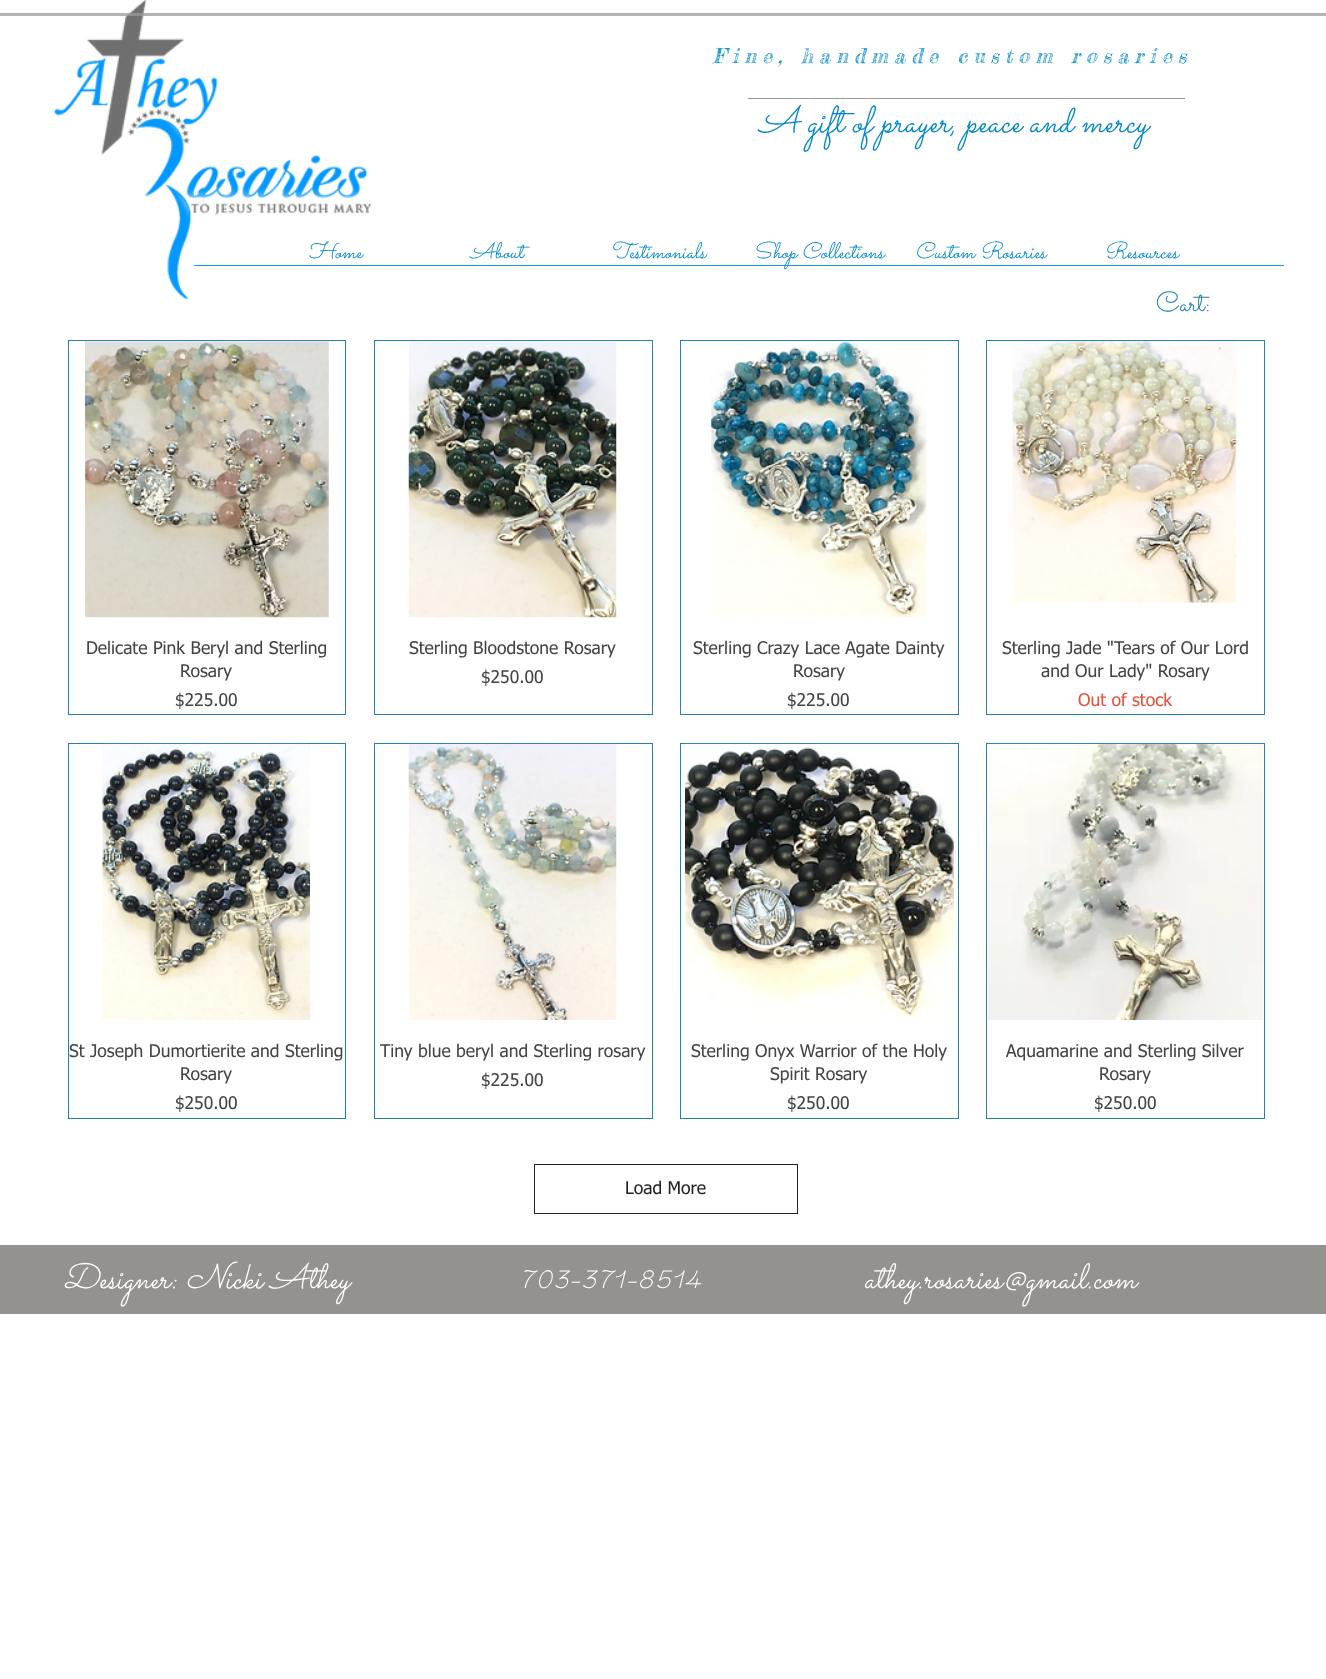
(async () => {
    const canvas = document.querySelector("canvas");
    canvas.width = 1326;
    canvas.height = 1679;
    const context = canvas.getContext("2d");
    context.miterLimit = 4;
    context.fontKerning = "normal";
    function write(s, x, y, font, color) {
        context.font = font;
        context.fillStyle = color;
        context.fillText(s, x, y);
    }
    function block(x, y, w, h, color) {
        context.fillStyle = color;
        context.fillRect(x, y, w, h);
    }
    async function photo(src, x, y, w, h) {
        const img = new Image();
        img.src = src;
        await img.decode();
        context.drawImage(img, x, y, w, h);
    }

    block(0, 0, 1326, 1679, "rgb(255, 255, 255)");
    await photo("media/1.png", 53, 0, 319, 299);
    block(0, 13, 1326, 3, "rgba(153, 153, 153, 0.75)");
    context.letterSpacing = "6px";
    write("Fine, handmade custom rosaries", 713, 63, "italic 20px Fredericka the Great", "rgb(0, 136, 203)");
    block(748, 98, 437, 1, "rgb(153, 153, 153)");
    context.letterSpacing = "0px";
    write("A gift of prayer, peace and mercy", 759, 132, "italic 37.5px Sacramento", "rgb(0, 136, 203)");
    write("Home", 308, 258, "italic 22.5px Sacramento", "rgb(0, 136, 203)");
    write("About", 470, 258, "italic 22.5px Sacramento", "rgb(0, 136, 203)");
    write("Testimonials", 610, 258, "italic 22.5px Sacramento", "rgb(0, 136, 203)");
    block(194, 265, 1090, 1, "rgb(20, 158, 230)");
    write("Shop Collections", 753, 258, "italic 22.5px Sacramento", "rgb(0, 136, 203)");
    write("Custom Rosaries", 915, 258, "italic 22.5px Sacramento", "rgb(0, 136, 203)");
    write("Resources", 1104, 258, "italic 22.5px Sacramento", "rgb(0, 136, 203)");
    write("Cart:", 1156, 311, "28px Sacramento", "rgb(36, 129, 175)");
    context.strokeStyle = "rgb(36, 129, 175)";
    context.strokeRect(68.5, 340.5, 277, 374);
    await photo("media/2.png", 85, 341, 244, 277);
    write("Delicate Pink Beryl and Sterling", 86, 654, "17.5px tahoma", "rgb(68, 68, 68)");
    write("Rosary", 180, 677, "17.5px tahoma", "rgb(68, 68, 68)");
    write("$225.00", 175, 706, "17.5px tahoma", "rgb(68, 68, 68)");
    context.strokeRect(374.5, 340.5, 278, 374);
    await photo("media/3.png", 408, 341, 209, 277);
    write("Sterling Bloodstone Rosary", 409, 654, "17.5px tahoma", "rgb(68, 68, 68)");
    write("$250.00", 481, 683, "17.5px tahoma", "rgb(68, 68, 68)");
    context.strokeRect(680.5, 340.5, 278, 374);
    await photo("media/4.png", 711, 341, 216, 277);
    write("Sterling Crazy Lace Agate Dainty", 693, 654, "17.5px tahoma", "rgb(68, 68, 68)");
    write("Rosary", 793, 677, "17.5px tahoma", "rgb(68, 68, 68)");
    write("$225.00", 787, 706, "17.5px tahoma", "rgb(68, 68, 68)");
    context.strokeRect(986.5, 340.5, 278, 374);
    await photo("media/5.png", 1012, 341, 225, 262);
    write("Sterling Jade \"Tears of Our Lord", 1002, 654, "17.5px tahoma", "rgb(68, 68, 68)");
    write("and Our Lady\" Rosary", 1041, 677, "17.5px tahoma", "rgb(68, 68, 68)");
    write("Out of stock", 1078, 706, "17.5px tahoma", "rgb(228, 82, 63)");
    context.strokeRect(68.5, 743.5, 277, 375);
    await photo("media/6.png", 102, 743, 208, 277);
    write("St Joseph Dumortierite and Sterling", 69, 1057, "17.5px tahoma", "rgb(68, 68, 68)");
    write("Rosary", 180, 1080, "17.5px tahoma", "rgb(68, 68, 68)");
    write("$250.00", 175, 1109, "17.5px tahoma", "rgb(68, 68, 68)");
    context.strokeRect(374.5, 743.5, 278, 375);
    await photo("media/7.png", 408, 743, 209, 277);
    write("Tiny blue beryl and Sterling rosary", 380, 1057, "17.5px tahoma", "rgb(68, 68, 68)");
    write("$225.00", 481, 1086, "17.5px tahoma", "rgb(68, 68, 68)");
    context.strokeRect(680.5, 743.5, 278, 375);
    await photo("media/8.png", 685, 743, 269, 275);
    write("Sterling Onyx Warrior of the Holy", 691, 1057, "17.5px tahoma", "rgb(68, 68, 68)");
    write("Spirit Rosary", 770, 1080, "17.5px tahoma", "rgb(68, 68, 68)");
    write("$250.00", 787, 1109, "17.5px tahoma", "rgb(68, 68, 68)");
    context.strokeRect(986.5, 743.5, 278, 375);
    await photo("media/9.png", 987, 743, 277, 277);
    write("Aquamarine and Sterling Silver", 1006, 1057, "17.5px tahoma", "rgb(68, 68, 68)");
    write("Rosary", 1099, 1080, "17.5px tahoma", "rgb(68, 68, 68)");
    write("$250.00", 1094, 1109, "17.5px tahoma", "rgb(68, 68, 68)");
    context.strokeStyle = "rgb(34, 34, 34)";
    context.strokeRect(534.5, 1164.5, 263, 49);
    write("Load More", 625, 1194, "17.5px tahoma", "rgb(34, 34, 34)");
    block(0, 1245, 1326, 69, "rgb(148, 146, 143)");
    write("Designer: Nicki Athey", 63, 1288, "italic 35px Sacramento", "rgb(255, 255, 255)");
    write("703-371-8514", 519, 1288, "italic 300 35px 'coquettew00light'", "rgb(255, 255, 255)");
    write("athey.rosaries@gmail.com", 864, 1288, "italic 35px Sacramento", "rgb(255, 255, 255)");
})();
